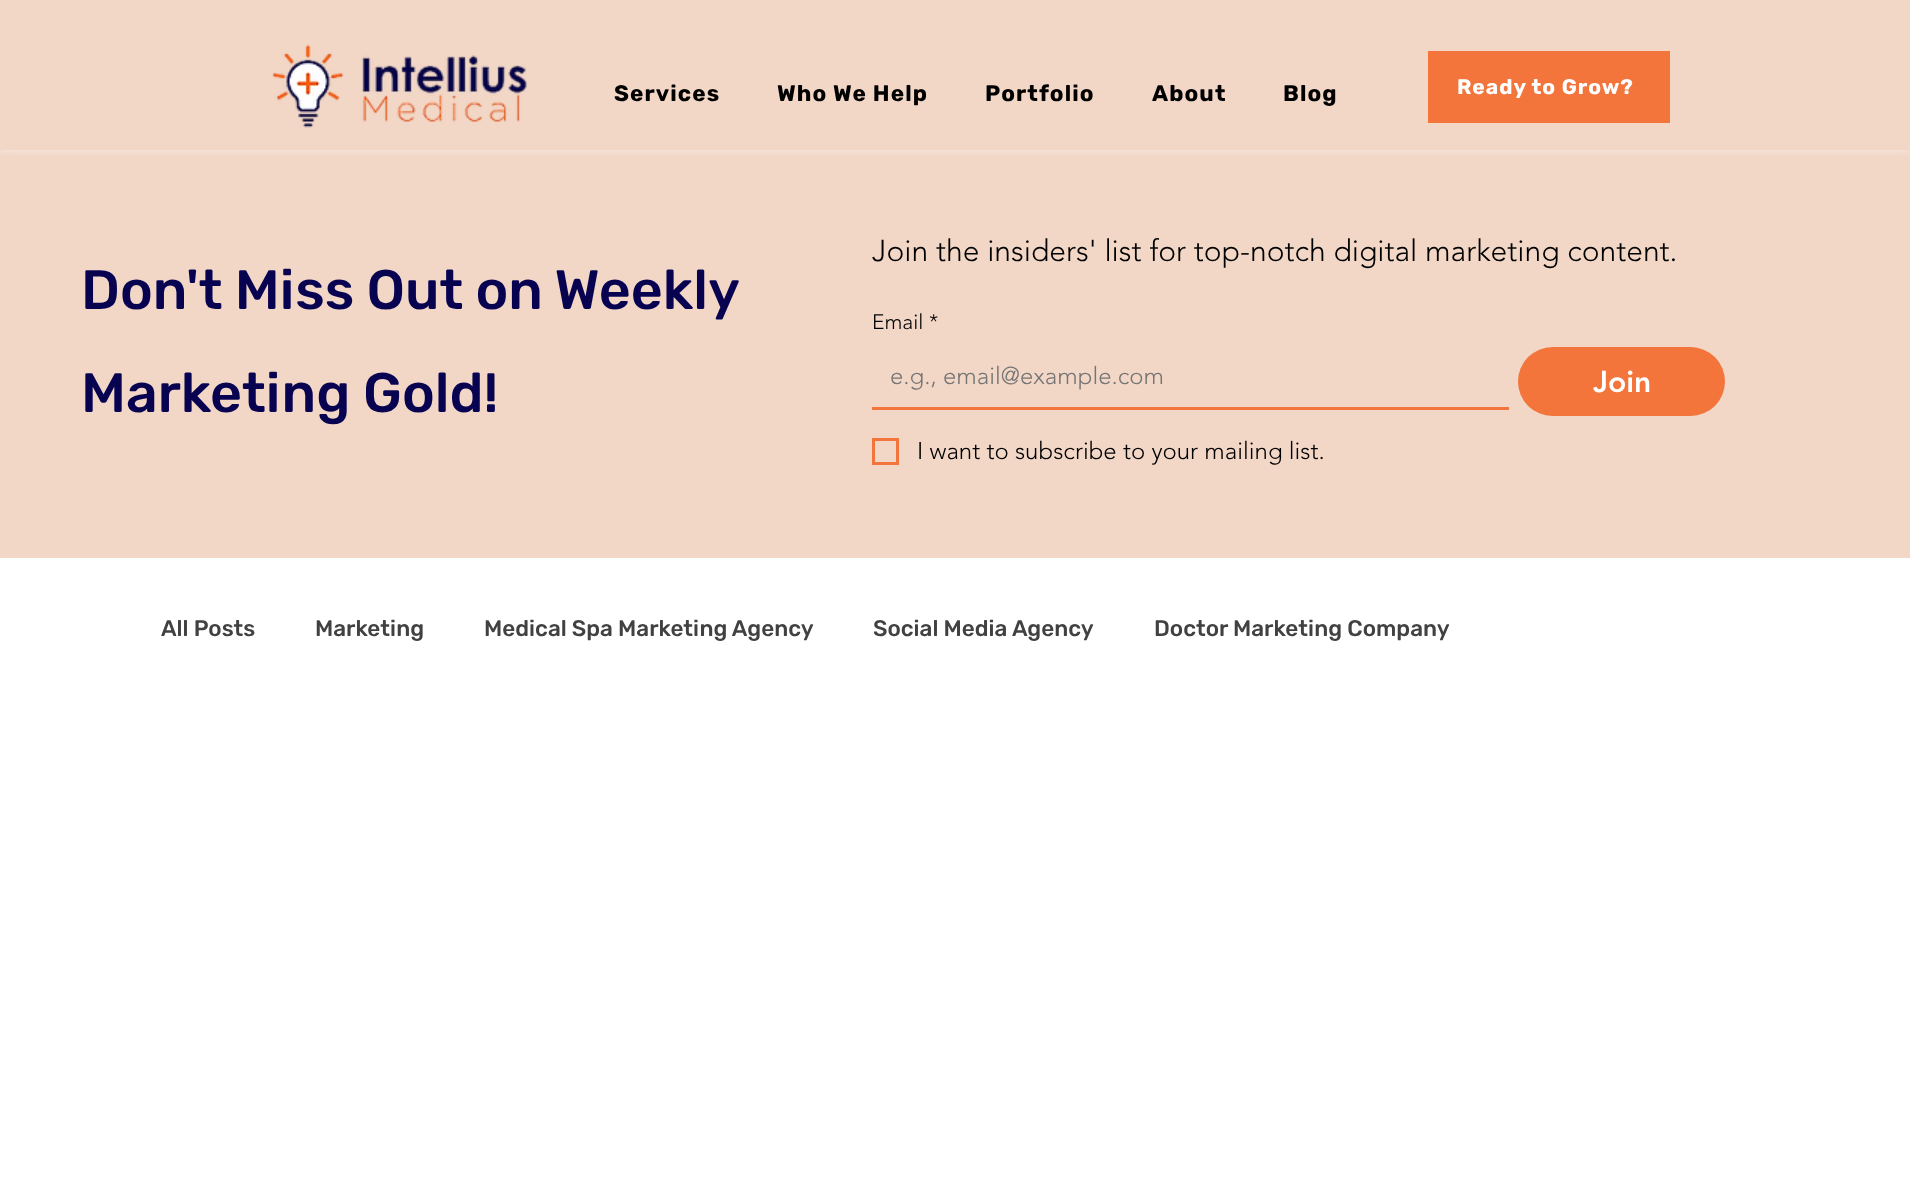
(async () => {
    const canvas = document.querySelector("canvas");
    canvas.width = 1910;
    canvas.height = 1188;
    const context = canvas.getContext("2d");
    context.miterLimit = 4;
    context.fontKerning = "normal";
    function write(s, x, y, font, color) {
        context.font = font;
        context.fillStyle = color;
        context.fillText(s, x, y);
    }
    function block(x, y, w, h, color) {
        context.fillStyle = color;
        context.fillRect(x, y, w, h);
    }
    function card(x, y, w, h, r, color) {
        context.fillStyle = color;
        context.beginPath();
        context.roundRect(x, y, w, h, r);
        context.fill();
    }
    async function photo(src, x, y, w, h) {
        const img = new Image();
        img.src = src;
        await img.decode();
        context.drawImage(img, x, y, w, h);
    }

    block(0, 0, 1910, 1188, "rgb(242, 215, 199)");
    context.fillStyle = "rgba(255, 255, 255, 0.5)";
    context.filter = "blur(4px)";
    context.beginPath();
    context.rect(0, 0, 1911, 150);
    context.fill();
    context.filter = "none";
    block(0, 0, 1910, 150, "rgb(242, 215, 199)");
    await photo("media/1.png", 272, 44, 255, 84);
    context.letterSpacing = "1.1px";
    write("Services", 614, 101, "bold 22.5px Rubik", "rgb(0, 0, 0)");
    write("Who We Help", 777, 101, "bold 22.5px Rubik", "rgb(0, 0, 0)");
    write("Portfolio", 985, 101, "bold 22.5px Rubik", "rgb(0, 0, 0)");
    write("About", 1152, 101, "bold 22.5px Rubik", "rgb(0, 0, 0)");
    write("Blog", 1283, 101, "bold 22.5px Rubik", "rgb(0, 0, 0)");
    block(1428, 51, 242, 72, "rgb(243, 117, 59)");
    context.letterSpacing = "1px";
    write("Ready to Grow?", 1457, 94, "bold 21px 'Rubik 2'", "rgb(255, 255, 255)");
    context.letterSpacing = "0px";
    context.wordSpacing = "-0.5px";
    write("Don't Miss Out on Weekly", 81, 309, "500 55.5px Rubik", "rgb(8, 3, 81)");
    context.wordSpacing = "0px";
    write("Marketing Gold!", 81, 412, "500 55.5px Rubik", "rgb(8, 3, 81)");
    write("Join the insiders' list for top-notch digital marketing content.", 872, 261, "300 30px 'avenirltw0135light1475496'", "rgb(0, 0, 0)");
    write("Email", 872, 329, "300 21px 'avenirltw0135light1475496'", "rgb(0, 0, 0)");
    write("*", 929, 329, "300 21px 'avenirltw0135light1475496'", "rgb(0, 0, 0)");
    block(872, 407, 637, 3, "rgb(243, 117, 59)");
    write("e.g., email@example.com", 890, 384, "300 24px 'avenirltw0135light1475496'", "rgb(117, 117, 117)");
    card(1518, 347, 207, 69, 34.5, "rgb(243, 117, 59)");
    write("Join", 1593, 392, "900 30px 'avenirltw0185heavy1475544'", "rgb(255, 255, 255)");
    context.strokeStyle = "rgb(243, 117, 59)";
    context.lineWidth = 3;
    context.strokeRect(873.5, 439.5, 24, 24);
    write("I want to subscribe to your mailing list.", 917, 459, "300 24px 'avenirltw0135light1475496'", "rgb(0, 0, 0)");
    block(0, 558, 1910, 630, "rgb(255, 255, 255)");
    write("All Posts", 161, 636, "500 22.5px Rubik", "rgb(65, 65, 65)");
    write("Marketing", 315, 636, "500 22.5px Rubik", "rgb(65, 65, 65)");
    write("Medical Spa Marketing Agency", 484, 636, "500 22.5px Rubik", "rgb(65, 65, 65)");
    write("Social Media Agency", 873, 636, "500 22.5px Rubik", "rgb(65, 65, 65)");
    write("Doctor Marketing Company", 1154, 636, "500 22.5px Rubik", "rgb(65, 65, 65)");
})();
